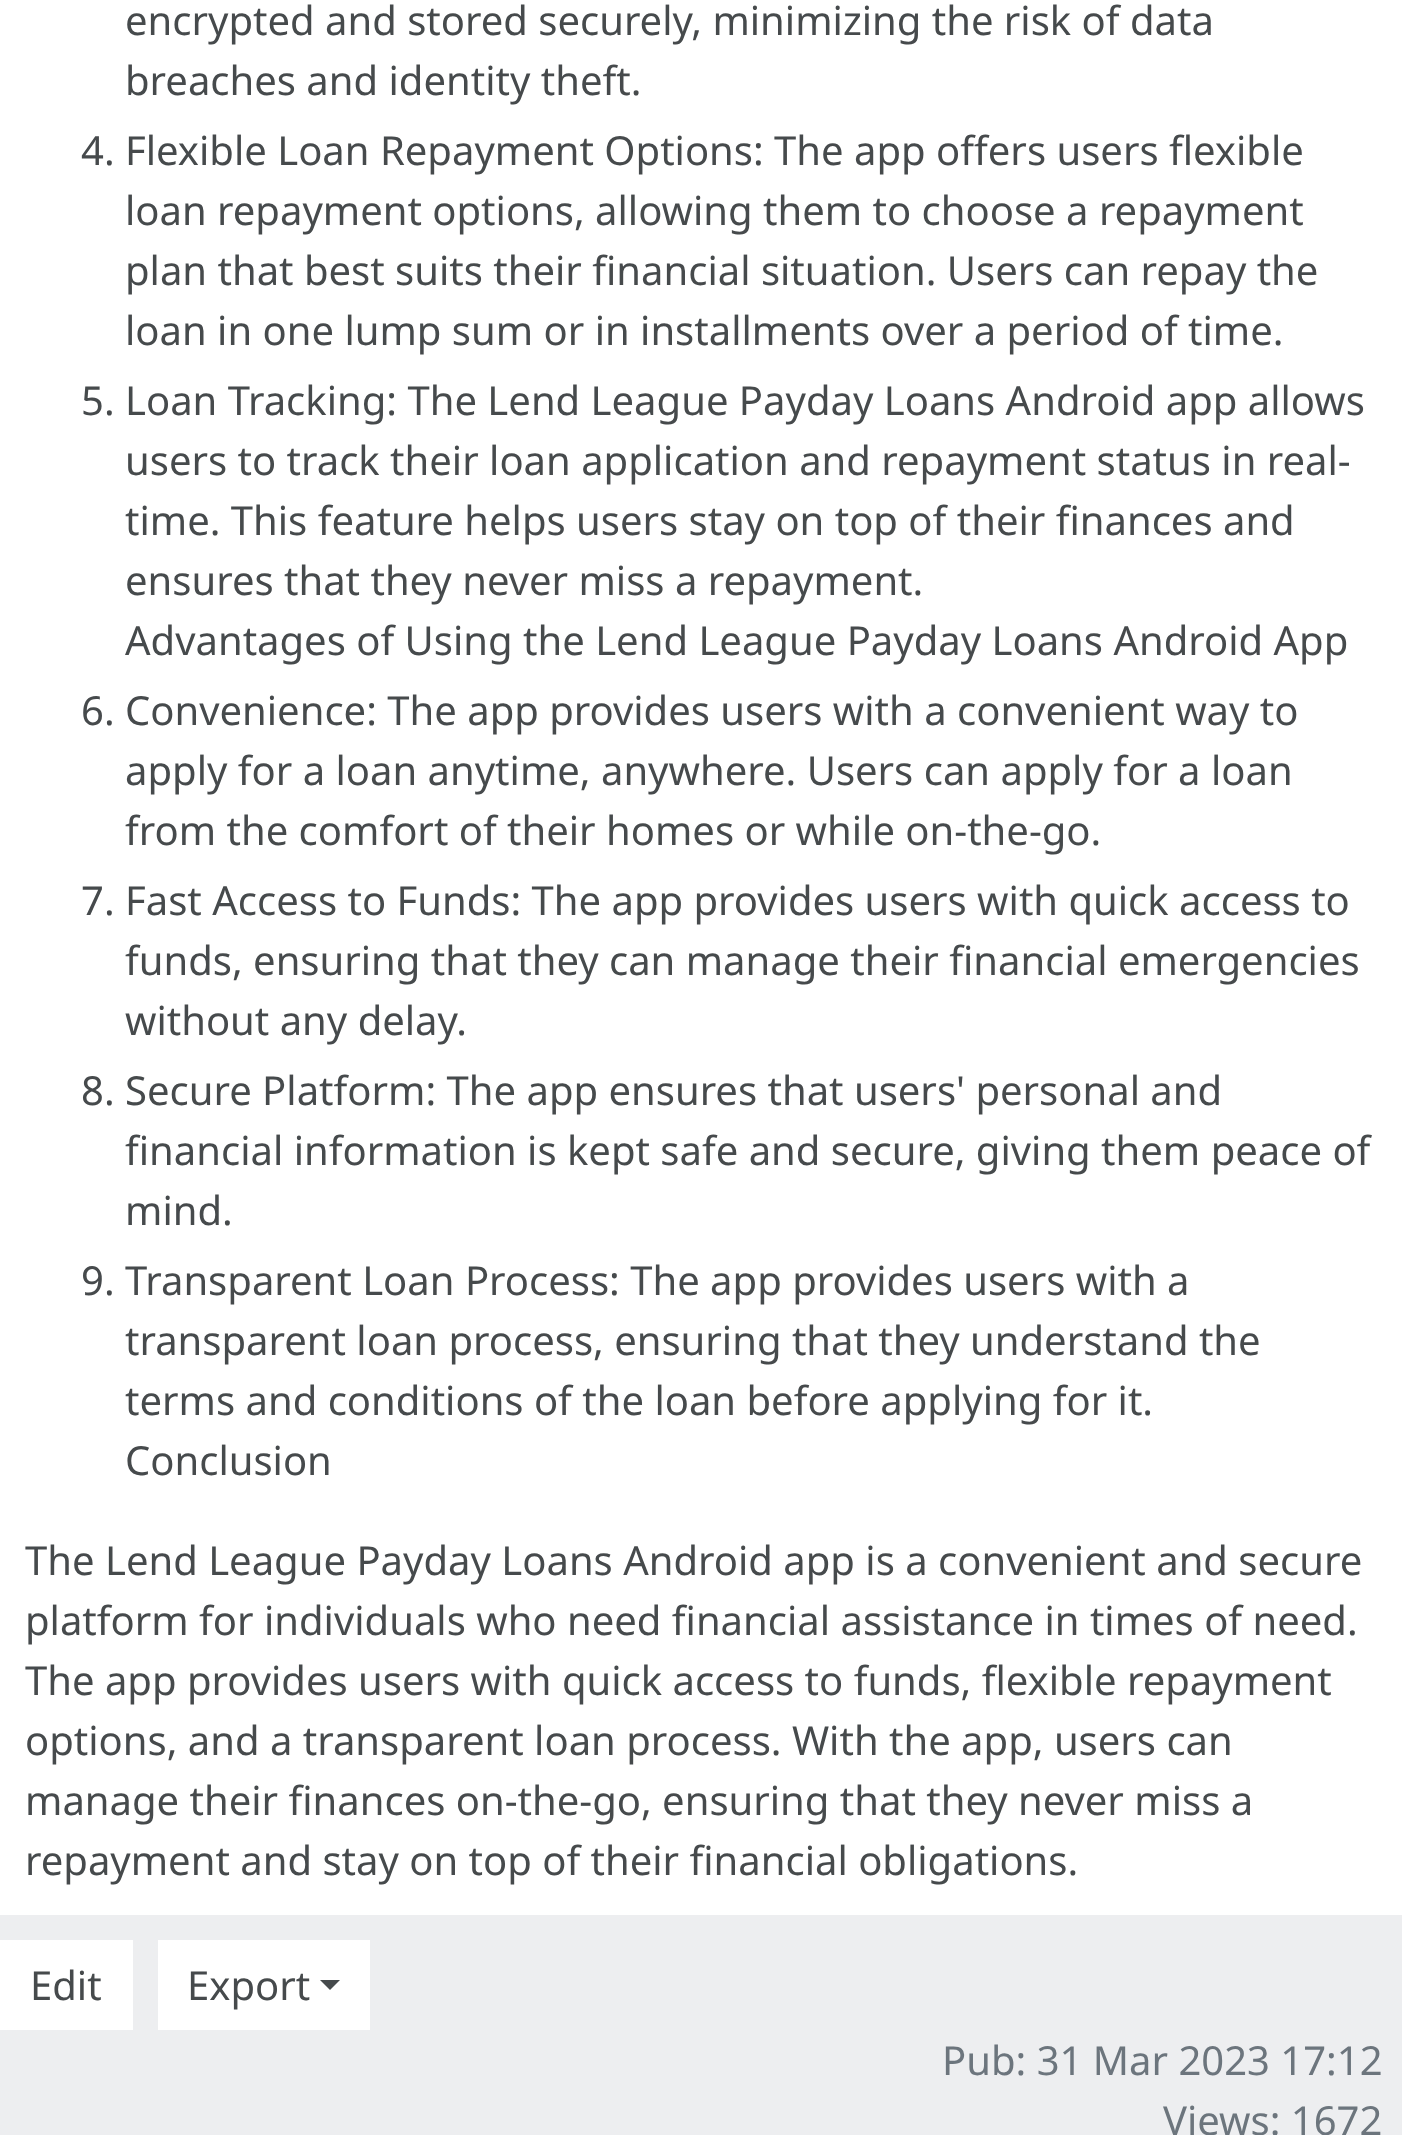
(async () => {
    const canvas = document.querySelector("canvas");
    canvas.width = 1402;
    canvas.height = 2135;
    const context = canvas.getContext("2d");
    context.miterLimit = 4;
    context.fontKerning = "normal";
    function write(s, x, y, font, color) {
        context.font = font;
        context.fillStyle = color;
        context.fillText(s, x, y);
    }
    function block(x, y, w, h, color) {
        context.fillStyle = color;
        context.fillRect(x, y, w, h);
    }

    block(0, 0, 1402, 2135, "rgb(237, 238, 240)");
    block(0, 0, 1402, 1915, "rgb(255, 255, 255)");
    write("encrypted and stored securely, minimizing the risk of data", 125, 35, "40px Noto Sans", "rgb(70, 74, 76)");
    write("breaches and identity theft.", 125, 95, "40px Noto Sans", "rgb(70, 74, 76)");
    write("4. Flexible Loan Repayment Options: The app offers users flexible", 81, 165, "40px Noto Sans", "rgb(70, 74, 76)");
    write("loan repayment options, allowing them to choose a repayment", 125, 225, "40px Noto Sans", "rgb(70, 74, 76)");
    write("plan that best suits their financial situation. Users can repay the", 125, 285, "40px Noto Sans", "rgb(70, 74, 76)");
    write("loan in one lump sum or in installments over a period of time.", 125, 345, "40px Noto Sans", "rgb(70, 74, 76)");
    write("5. Loan Tracking: The Lend League Payday Loans Android app allows", 81, 415, "40px Noto Sans", "rgb(70, 74, 76)");
    write("users to track their loan application and repayment status in real-", 125, 475, "40px Noto Sans", "rgb(70, 74, 76)");
    write("time. This feature helps users stay on top of their finances and", 125, 535, "40px Noto Sans", "rgb(70, 74, 76)");
    write("ensures that they never miss a repayment.", 125, 595, "40px Noto Sans", "rgb(70, 74, 76)");
    write("Advantages of Using the Lend League Payday Loans Android App", 125, 655, "40px Noto Sans", "rgb(70, 74, 76)");
    write("6. Convenience: The app provides users with a convenient way to", 81, 725, "40px Noto Sans", "rgb(70, 74, 76)");
    write("apply for a loan anytime, anywhere. Users can apply for a loan", 125, 785, "40px Noto Sans", "rgb(70, 74, 76)");
    write("from the comfort of their homes or while on-the-go.", 125, 845, "40px Noto Sans", "rgb(70, 74, 76)");
    write("7. Fast Access to Funds: The app provides users with quick access to", 81, 915, "40px Noto Sans", "rgb(70, 74, 76)");
    write("funds, ensuring that they can manage their financial emergencies", 125, 975, "40px Noto Sans", "rgb(70, 74, 76)");
    write("without any delay.", 125, 1035, "40px Noto Sans", "rgb(70, 74, 76)");
    write("8. Secure Platform: The app ensures that users' personal and", 81, 1105, "40px Noto Sans", "rgb(70, 74, 76)");
    write("financial information is kept safe and secure, giving them peace of", 125, 1165, "40px Noto Sans", "rgb(70, 74, 76)");
    write("mind.", 125, 1225, "40px Noto Sans", "rgb(70, 74, 76)");
    write("9. Transparent Loan Process: The app provides users with a", 81, 1295, "40px Noto Sans", "rgb(70, 74, 76)");
    write("transparent loan process, ensuring that they understand the", 125, 1355, "40px Noto Sans", "rgb(70, 74, 76)");
    write("terms and conditions of the loan before applying for it.", 125, 1415, "40px Noto Sans", "rgb(70, 74, 76)");
    write("Conclusion", 125, 1475, "40px Noto Sans", "rgb(70, 74, 76)");
    write("The Lend League Payday Loans Android app is a convenient and secure", 25, 1575, "40px Noto Sans", "rgb(70, 74, 76)");
    write("platform for individuals who need financial assistance in times of need.", 25, 1635, "40px Noto Sans", "rgb(70, 74, 76)");
    write("The app provides users with quick access to funds, flexible repayment", 25, 1695, "40px Noto Sans", "rgb(70, 74, 76)");
    write("options, and a transparent loan process. With the app, users can", 25, 1755, "40px Noto Sans", "rgb(70, 74, 76)");
    write("manage their finances on-the-go, ensuring that they never miss a", 25, 1815, "40px Noto Sans", "rgb(70, 74, 76)");
    write("repayment and stay on top of their financial obligations.", 25, 1875, "40px Noto Sans", "rgb(70, 74, 76)");
    block(0, 1940, 133, 90, "rgb(255, 255, 255)");
    write("Edit", 30, 2000, "40px Noto Sans", "rgb(70, 74, 76)");
    block(158, 1940, 212, 90, "rgb(255, 255, 255)");
    write("Export", 187, 2000, "40px Noto Sans", "rgb(70, 74, 76)");
    context.beginPath();
    context.moveTo(320, 1980);
    context.lineTo(340, 1980);
    context.lineTo(330, 1990);
    context.closePath();
    context.fill();
    write("Pub: 31 Mar 2023 17:12", 942, 2075, "40px Noto Sans", "rgb(108, 117, 125)");
    write("Views: 1672", 1163, 2135, "40px Noto Sans", "rgb(108, 117, 125)");
})();
